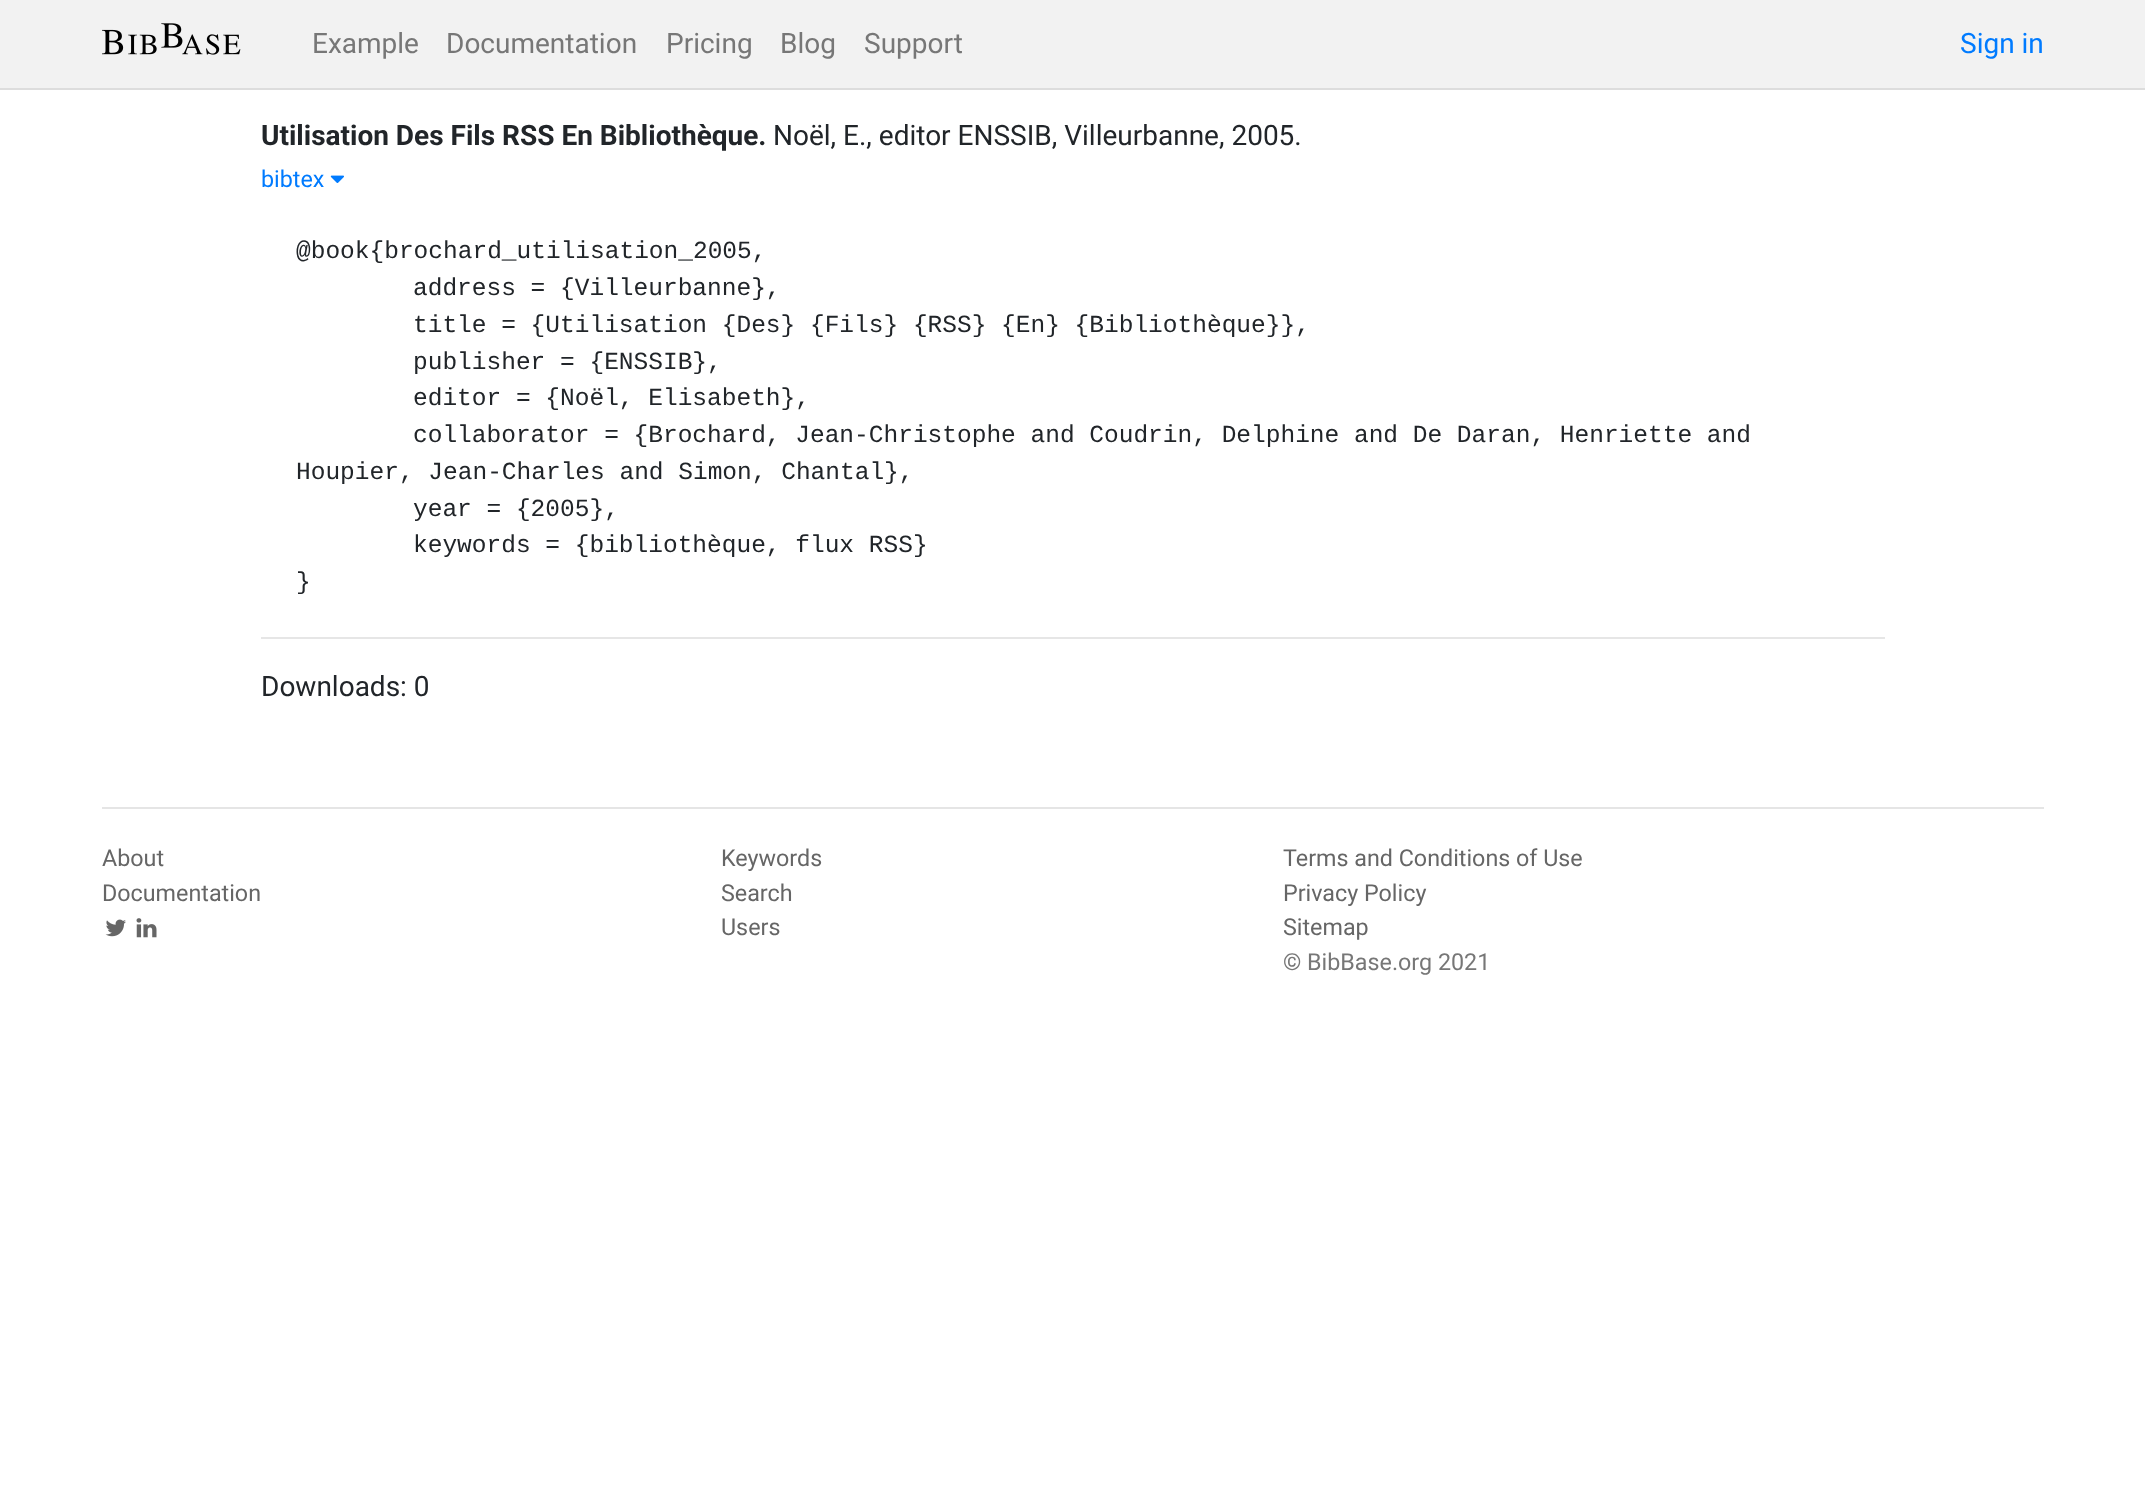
(async () => {
    const canvas = document.querySelector("canvas");
    canvas.width = 2145;
    canvas.height = 1495;
    const context = canvas.getContext("2d");
    context.miterLimit = 4;
    context.fontKerning = "normal";
    function write(s, x, y, font, color) {
        context.font = font;
        context.fillStyle = color;
        context.fillText(s, x, y);
    }
    function block(x, y, w, h, color) {
        context.fillStyle = color;
        context.fillRect(x, y, w, h);
    }
    async function photo(src, x, y, w, h) {
        const img = new Image();
        img.src = src;
        await img.decode();
        context.drawImage(img, x, y, w, h);
    }

    block(0, 0, 2145, 1495, "rgb(255, 255, 255)");
    block(0, 0, 2145, 88, "rgb(242, 242, 242)");
    block(0, 88, 2145, 2, "rgb(221, 221, 221)");
    await photo("media/1.png", 102, 23, 139, 32);
    write("Example", 312, 53, "28px Roboto", "rgb(119, 119, 119)");
    write("Documentation", 446, 53, "28px Roboto", "rgb(119, 119, 119)");
    write("Pricing", 666, 53, "28px Roboto", "rgb(119, 119, 119)");
    write("Blog", 780, 53, "28px Roboto", "rgb(119, 119, 119)");
    write("Support", 864, 53, "28px Roboto", "rgb(119, 119, 119)");
    write("Sign in", 1960, 53, "28px Roboto", "rgb(0, 123, 255)");
    write("Utilisation Des Fils RSS En Bibliothèque.", 261, 145, "bold 28px Roboto", "rgb(33, 37, 41)");
    write("Noël, E., editor ENSSIB, Villeurbanne, 2005.", 773, 145, "28px Roboto", "rgb(33, 37, 41)");
    write("bibtex", 261, 187, "23.3px Roboto", "rgb(0, 123, 255)");
    await photo("media/2.png", 330, 175, 14, 8);
    write("@book{brochard_utilisation_2005,", 296, 258, "24.5px Liberation Mono", "rgb(33, 37, 41)");
    write("address = {Villeurbanne},", 413, 295, "24.5px Liberation Mono", "rgb(33, 37, 41)");
    write("title = {Utilisation {Des} {Fils} {RSS} {En} {Bibliothèque}},", 413, 332, "24.5px Liberation Mono", "rgb(33, 37, 41)");
    write("publisher = {ENSSIB},", 413, 369, "24.5px Liberation Mono", "rgb(33, 37, 41)");
    write("editor = {Noël, Elisabeth},", 413, 405, "24.5px Liberation Mono", "rgb(33, 37, 41)");
    write("collaborator = {Brochard, Jean-Christophe and Coudrin, Delphine and De Daran, Henriette and", 413, 442, "24.5px Liberation Mono", "rgb(33, 37, 41)");
    write("Houpier, Jean-Charles and Simon, Chantal},", 296, 479, "24.5px Liberation Mono", "rgb(33, 37, 41)");
    write("year = {2005},", 413, 516, "24.5px Liberation Mono", "rgb(33, 37, 41)");
    write("keywords = {bibliothèque, flux RSS}", 413, 552, "24.5px Liberation Mono", "rgb(33, 37, 41)");
    write("}", 296, 589, "24.5px Liberation Mono", "rgb(33, 37, 41)");
    block(261, 637, 1624, 2, "rgb(230, 230, 230)");
    write("Downloads: 0", 261, 696, "28px Roboto", "rgb(33, 37, 41)");
    block(102, 807, 1942, 2, "rgb(229, 229, 229)");
    write("About", 102, 866, "23.3px Roboto", "rgb(102, 102, 102)");
    write("Documentation", 102, 901, "23.3px Roboto", "rgb(102, 102, 102)");
    await photo("media/3.png", 105, 919, 21, 18);
    await photo("media/4.png", 136, 918, 21, 20);
    write("Keywords", 721, 866, "23.3px Roboto", "rgb(102, 102, 102)");
    write("Search", 721, 901, "23.3px Roboto", "rgb(102, 102, 102)");
    write("Users", 721, 935, "23.3px Roboto", "rgb(102, 102, 102)");
    write("Terms and Conditions of Use", 1283, 866, "23.3px Roboto", "rgb(102, 102, 102)");
    write("Privacy Policy", 1283, 901, "23.3px Roboto", "rgb(102, 102, 102)");
    write("Sitemap", 1283, 935, "23.3px Roboto", "rgb(102, 102, 102)");
    write("© BibBase.org 2021", 1283, 970, "23.3px Roboto", "rgb(119, 119, 119)");
})();
